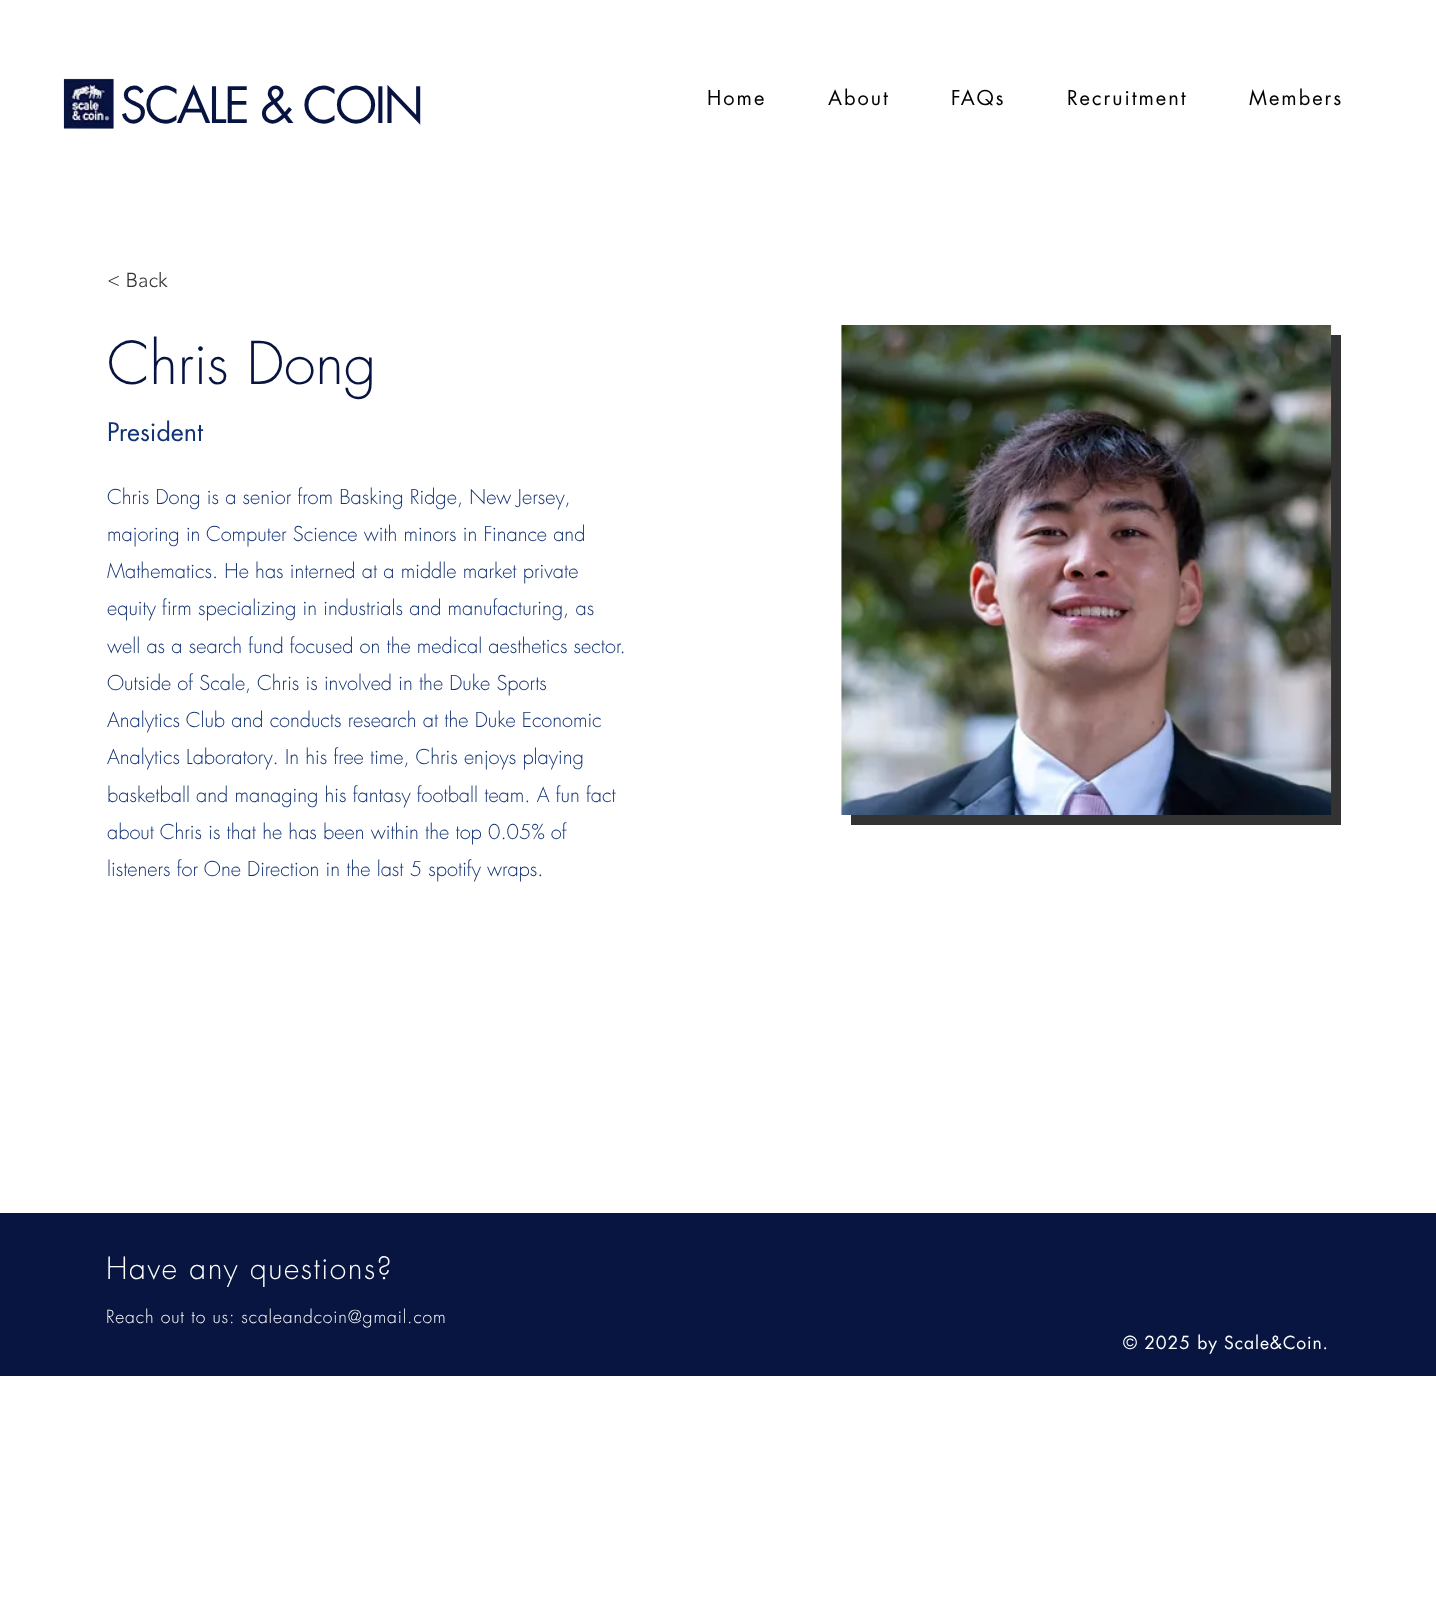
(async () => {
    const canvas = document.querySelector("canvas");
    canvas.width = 1436;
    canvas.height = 1605;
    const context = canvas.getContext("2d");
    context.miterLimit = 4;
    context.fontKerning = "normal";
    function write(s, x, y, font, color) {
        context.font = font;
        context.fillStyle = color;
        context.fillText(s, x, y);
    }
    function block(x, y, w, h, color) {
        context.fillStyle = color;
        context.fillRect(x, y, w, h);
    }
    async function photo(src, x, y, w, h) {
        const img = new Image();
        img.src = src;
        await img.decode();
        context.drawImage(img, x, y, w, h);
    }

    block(0, 0, 1436, 1605, "rgb(255, 255, 255)");
    await photo("media/1.png", 63, 78, 51, 51);
    context.letterSpacing = "-2.5px";
    write("SCALE & COIN", 120, 123, "48.75px futura", "rgb(7, 20, 65)");
    context.letterSpacing = "2px";
    write("Home", 707, 105, "20px futura", "rgb(0, 0, 0)");
    write("About", 828, 105, "20px futura", "rgb(0, 0, 0)");
    write("FAQs", 951, 105, "20px futura", "rgb(0, 0, 0)");
    write("Recruitment", 1067, 105, "20px futura", "rgb(0, 0, 0)");
    write("Members", 1249, 105, "20px futura", "rgb(0, 0, 0)");
    context.letterSpacing = "0px";
    write("< Back", 107, 287, "300 20px 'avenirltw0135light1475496'", "rgb(51, 51, 51)");
    write("Chris Dong", 107, 384, "300 57.5px futura", "rgb(7, 20, 65)");
    write("President", 107, 441, "25px futura", "rgb(17, 50, 115)");
    write("Chris Dong is a senior from Basking Ridge, New Jersey,", 107, 504, "300 20px futura", "rgb(17, 50, 115)");
    write("majoring in Computer Science with minors in Finance and", 107, 541, "300 20px futura", "rgb(17, 50, 115)");
    write("Mathematics. He has interned at a middle market private", 107, 578, "300 20px futura", "rgb(17, 50, 115)");
    write("equity firm specializing in industrials and manufacturing, as", 107, 615, "300 20px futura", "rgb(17, 50, 115)");
    write("well as a search fund focused on the medical aesthetics sector.", 107, 653, "300 20px futura", "rgb(17, 50, 115)");
    write("Outside of Scale, Chris is involved in the Duke Sports", 107, 690, "300 20px futura", "rgb(17, 50, 115)");
    write("Analytics Club and conducts research at the Duke Economic", 107, 727, "300 20px futura", "rgb(17, 50, 115)");
    write("Analytics Laboratory. In his free time, Chris enjoys playing", 107, 764, "300 20px futura", "rgb(17, 50, 115)");
    write("basketball and managing his fantasy football team. A fun fact", 107, 802, "300 20px futura", "rgb(17, 50, 115)");
    write("about Chris is that he has been within the top 0.05% of", 107, 839, "300 20px futura", "rgb(17, 50, 115)");
    write("listeners for One Direction in the last 5 spotify wraps.", 107, 876, "300 20px futura", "rgb(17, 50, 115)");
    block(851, 335, 490, 490, "rgb(51, 51, 51)");
    await photo("media/2.png", 841, 325, 491, 490);
    block(0, 1213, 1436, 163, "rgb(7, 21, 64)");
    context.letterSpacing = "1.5px";
    write("Have any questions?", 106, 1279, "300 30px futura", "rgb(255, 255, 255)");
    context.letterSpacing = "0.9px";
    write("Reach out to us: scaleandcoin@gmail.com", 106, 1323, "300 17.5px futura", "rgb(255, 255, 255)");
    write("© 2025 by Scale&Coin.", 1123, 1349, "17.5px futura", "rgb(255, 255, 255)");
})();
